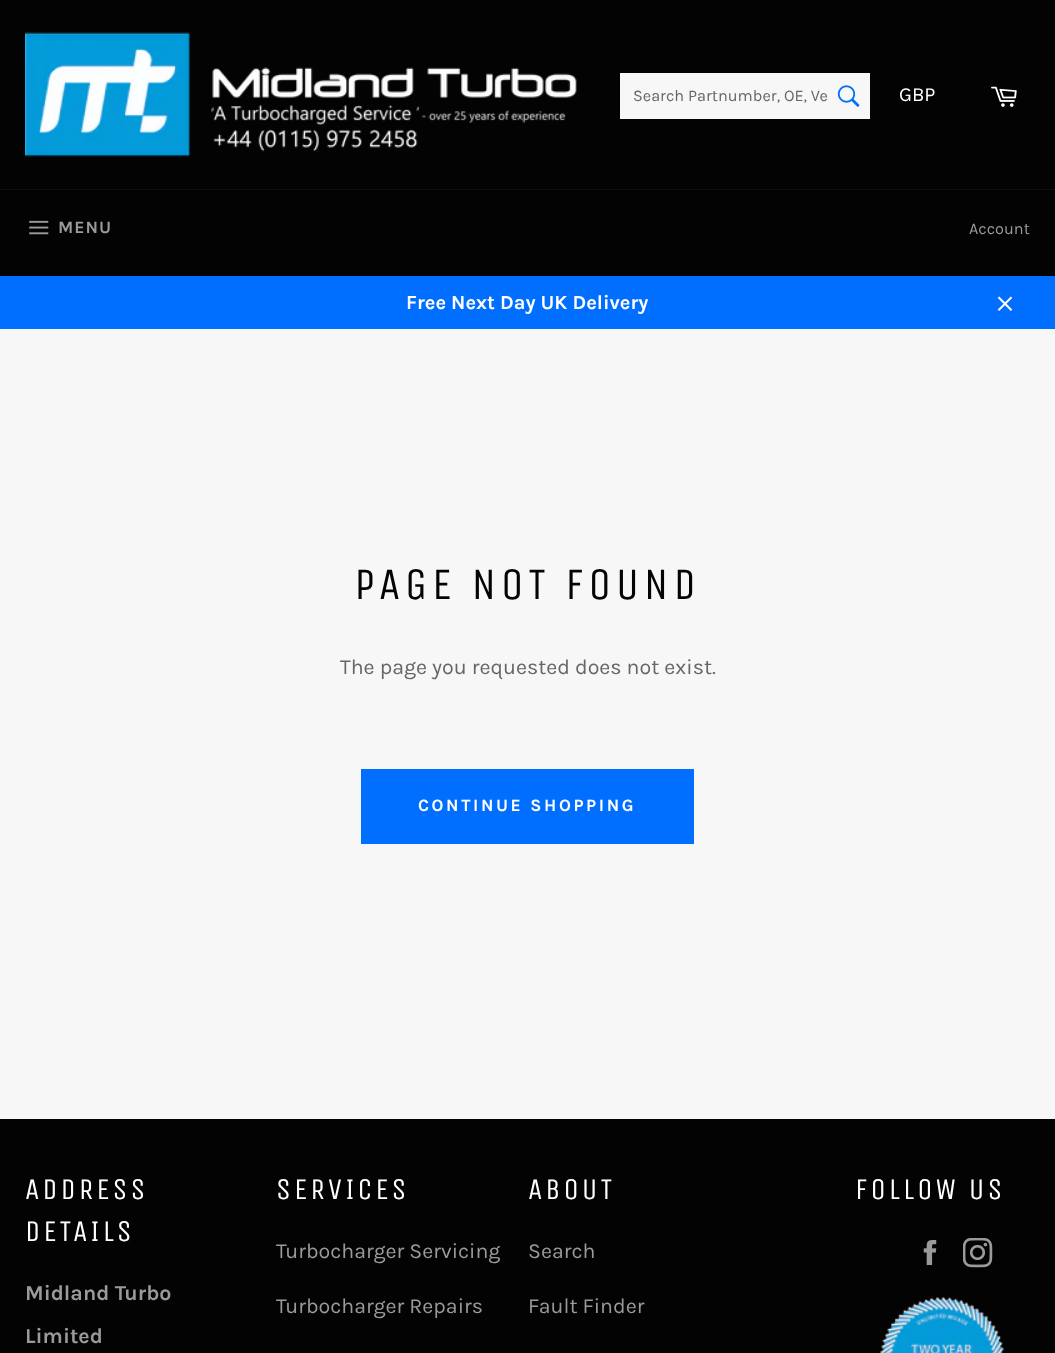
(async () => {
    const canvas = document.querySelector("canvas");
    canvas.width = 1055;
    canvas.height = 1353;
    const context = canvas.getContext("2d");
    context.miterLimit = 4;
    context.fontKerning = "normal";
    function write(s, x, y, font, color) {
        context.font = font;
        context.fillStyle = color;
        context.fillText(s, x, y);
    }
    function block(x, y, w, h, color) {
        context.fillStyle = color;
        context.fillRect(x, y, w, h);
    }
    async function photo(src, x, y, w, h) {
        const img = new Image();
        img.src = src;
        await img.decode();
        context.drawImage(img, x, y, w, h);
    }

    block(0, 0, 1055, 1353, "rgb(247, 247, 247)");
    block(0, 0, 1055, 276, "rgb(3, 3, 3)");
    await photo("media/1.png", 25, 32, 552, 125);
    block(620, 73, 250, 46, "rgb(247, 247, 247)");
    write("Search Partnumber, OE, Ve", 633, 101, "16.25px Karla", "rgb(102, 102, 102)");
    await photo("media/2.png", 837, 85, 23, 22);
    write("GBP", 899, 101, "20px Karla", "rgb(255, 255, 255)");
    await photo("media/3.png", 991, 86, 26, 21);
    block(0, 189, 1055, 1, "rgb(16, 16, 16)");
    await photo("media/4.png", 29, 220, 20, 15);
    context.letterSpacing = "1px";
    write("MENU", 58, 233, "bold 17.5px Karla", "rgb(154, 154, 154)");
    context.letterSpacing = "0px";
    write("Account", 969, 234, "16.25px Karla", "rgb(154, 154, 154)");
    block(0, 276, 1055, 53, "rgb(0, 110, 255)");
    write("Free Next Day UK Delivery", 406, 309, "bold 20px Karla", "rgb(255, 255, 255)");
    await photo("media/5.png", 997, 296, 16, 15);
    context.letterSpacing = "4.5px";
    write("PAGE NOT FOUND", 354, 599, "45px Unica One", "rgb(3, 3, 3)");
    context.letterSpacing = "0px";
    write("The page you requested does not exist.", 340, 674, "21.4px Karla", "rgb(102, 102, 102)");
    block(361, 769, 333, 75, "rgb(0, 110, 255)");
    context.letterSpacing = "2.6px";
    write("CONTINUE SHOPPING", 418, 811, "bold 17.4px Karla", "rgb(255, 255, 255)");
    block(0, 1119, 1055, 234, "rgb(3, 3, 3)");
    context.letterSpacing = "3px";
    write("ADDRESS", 25, 1199, "30px Unica One", "rgb(255, 255, 255)");
    write("DETAILS", 25, 1241, "30px Unica One", "rgb(255, 255, 255)");
    context.letterSpacing = "0px";
    write("Midland Turbo", 25, 1300, "bold 21.4px Karla", "rgb(154, 154, 154)");
    write("Limited", 25, 1343, "bold 21.4px Karla", "rgb(154, 154, 154)");
    context.letterSpacing = "3px";
    write("SERVICES", 276, 1199, "30px Unica One", "rgb(255, 255, 255)");
    context.letterSpacing = "0px";
    write("Turbocharger Servicing", 276, 1258, "21.4px Karla", "rgb(154, 154, 154)");
    write("Turbocharger Repairs", 276, 1313, "21.4px Karla", "rgb(154, 154, 154)");
    context.letterSpacing = "3px";
    write("ABOUT", 528, 1199, "30px Unica One", "rgb(255, 255, 255)");
    context.letterSpacing = "0px";
    write("Search", 528, 1258, "21.4px Karla", "rgb(154, 154, 154)");
    write("Fault Finder", 528, 1313, "21.4px Karla", "rgb(154, 154, 154)");
    context.letterSpacing = "3px";
    write("FOLLOW US", 855, 1199, "30px Unica One", "rgb(255, 255, 255)");
    await photo("media/6.png", 923, 1240, 14, 25);
    await photo("media/7.png", 963, 1238, 30, 30);
    await photo("media/8.png", 880, 1297, 124, 56);
})();
